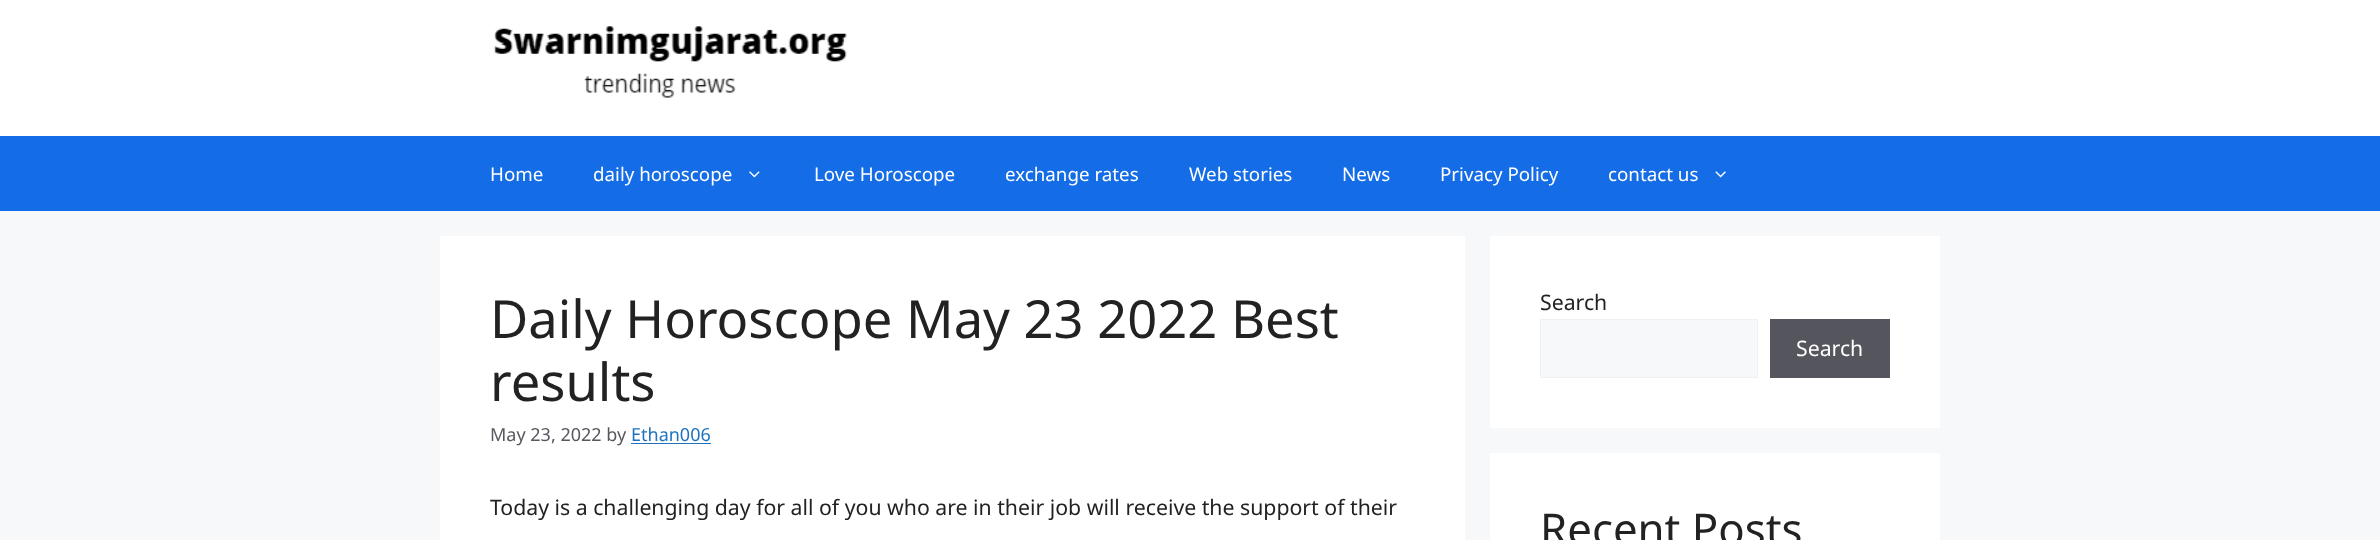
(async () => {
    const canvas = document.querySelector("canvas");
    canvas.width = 2380;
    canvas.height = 540;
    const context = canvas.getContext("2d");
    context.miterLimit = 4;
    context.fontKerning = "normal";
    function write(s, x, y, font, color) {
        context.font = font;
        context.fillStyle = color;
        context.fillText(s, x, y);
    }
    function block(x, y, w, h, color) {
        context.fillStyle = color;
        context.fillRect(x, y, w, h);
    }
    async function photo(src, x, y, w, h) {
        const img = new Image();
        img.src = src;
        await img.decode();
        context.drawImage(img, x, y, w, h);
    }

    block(0, 0, 2380, 540, "rgb(247, 248, 249)");
    block(0, 0, 2380, 136, "rgb(255, 255, 255)");
    await photo("media/1.png", 493, 26, 354, 72);
    block(0, 136, 2380, 75, "rgb(20, 108, 230)");
    write("Home", 490, 181, "18.75px Noto Sans", "rgb(255, 255, 255)");
    write("daily horoscope", 593, 181, "18.75px Noto Sans", "rgb(255, 255, 255)");
    await photo("media/2.png", 749, 171, 11, 7);
    write("Love Horoscope", 814, 181, "18.75px Noto Sans", "rgb(255, 255, 255)");
    write("exchange rates", 1005, 181, "18.75px Noto Sans", "rgb(255, 255, 255)");
    write("Web stories", 1189, 181, "18.75px Noto Sans", "rgb(255, 255, 255)");
    write("News", 1342, 181, "18.75px Noto Sans", "rgb(255, 255, 255)");
    write("Privacy Policy", 1440, 181, "18.75px Noto Sans", "rgb(255, 255, 255)");
    write("contact us", 1608, 181, "18.75px Noto Sans", "rgb(255, 255, 255)");
    await photo("media/3.png", 1715, 171, 11, 7);
    block(440, 236, 1025, 304, "rgb(255, 255, 255)");
    write("Daily Horoscope May 23 2022 Best", 490, 338, "52.5px Noto Sans", "rgb(34, 34, 34)");
    write("results", 490, 401, "52.5px Noto Sans", "rgb(34, 34, 34)");
    write("May 23, 2022 by", 490, 441, "18px Noto Sans", "rgb(87, 87, 96)");
    write("Ethan006", 631, 441, "18px Noto Sans", "rgb(30, 115, 190)");
    block(631, 443, 80, 1, "rgb(30, 115, 190)");
    write("Today is a challenging day for all of you who are in their job will receive the support of their", 490, 515, "21.25px Noto Sans", "rgb(34, 34, 34)");
    block(1490, 236, 450, 192, "rgb(255, 255, 255)");
    write("Search", 1540, 310, "21.25px Noto Sans", "rgb(34, 34, 34)");
    context.fillStyle = "rgb(247, 248, 249)";
    context.beginPath();
    context.rect(1540.5, 319.5, 217, 58);
    context.fill();
    context.strokeStyle = "rgb(240, 240, 240)";
    context.stroke();
    block(1770, 319, 120, 59, "rgb(85, 85, 94)");
    write("Search", 1796, 356, "21.25px Noto Sans", "rgb(255, 255, 255)");
    block(1490, 453, 450, 87, "rgb(255, 255, 255)");
    write("Recent Posts", 1540, 545, "43.75px Noto Sans", "rgb(34, 34, 34)");
})();
